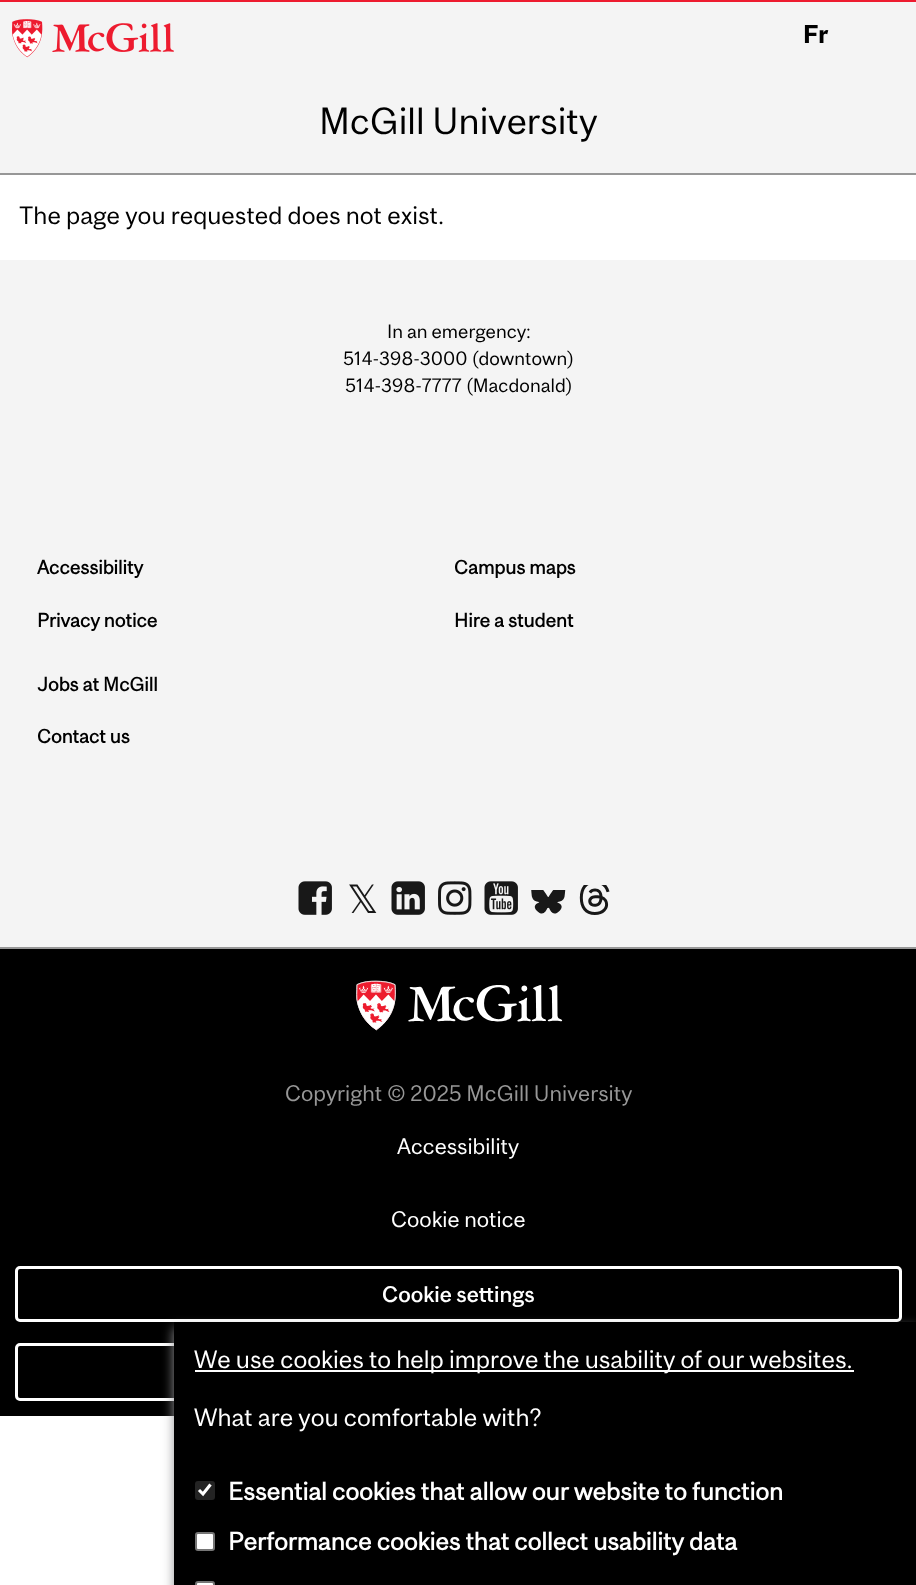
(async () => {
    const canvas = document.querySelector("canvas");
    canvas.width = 916;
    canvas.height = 1585;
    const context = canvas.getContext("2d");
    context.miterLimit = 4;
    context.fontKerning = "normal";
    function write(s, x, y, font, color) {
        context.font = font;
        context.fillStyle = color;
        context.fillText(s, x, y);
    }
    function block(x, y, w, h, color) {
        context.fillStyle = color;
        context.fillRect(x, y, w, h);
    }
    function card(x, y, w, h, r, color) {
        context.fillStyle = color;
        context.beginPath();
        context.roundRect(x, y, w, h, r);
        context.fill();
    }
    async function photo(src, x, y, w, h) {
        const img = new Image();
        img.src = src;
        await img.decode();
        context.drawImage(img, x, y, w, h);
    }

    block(0, 0, 916, 1585, "rgb(255, 255, 255)");
    block(0, 2, 916, 171, "rgb(244, 244, 244)");
    block(0, 0, 916, 2, "rgb(237, 27, 47)");
    block(0, 173, 916, 2, "rgb(151, 151, 151)");
    await photo("media/1.png", 12, 19, 162, 39);
    write("Fr", 803, 43, "bold 24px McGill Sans", "rgb(0, 0, 0)");
    write("McGill University", 319, 134, "35.25px McGill Sans", "rgb(0, 0, 0)");
    write("The page you requested does not exist.", 19, 224, "23.5px McGill Sans", "rgb(0, 0, 0)");
    block(0, 260, 916, 687, "rgb(244, 244, 244)");
    write("In an emergency:", 387, 338, "18px McGill Sans", "rgb(0, 0, 0)");
    write("514-398-3000 (downtown)", 343, 365, "18px McGill Sans", "rgb(0, 0, 0)");
    write("514-398-7777 (Macdonald)", 345, 392, "18px McGill Sans", "rgb(0, 0, 0)");
    write("Accessibility", 37, 574, "bold 18.25px 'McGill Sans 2'", "rgb(0, 0, 0)");
    write("Privacy notice", 37, 627, "bold 18.25px 'McGill Sans 2'", "rgb(0, 0, 0)");
    write("Campus maps", 454, 574, "bold 18.25px 'McGill Sans 2'", "rgb(0, 0, 0)");
    write("Hire a student", 454, 627, "bold 18.25px 'McGill Sans 2'", "rgb(0, 0, 0)");
    write("Jobs at McGill", 37, 691, "bold 18.25px 'McGill Sans 2'", "rgb(0, 0, 0)");
    write("Contact us", 37, 743, "bold 18.25px 'McGill Sans 2'", "rgb(0, 0, 0)");
    await photo("media/2.png", 298, 881, 34, 34);
    write("𝕏", 347, 913, "39px DejaVu Sans", "rgb(24, 24, 24)");
    await photo("media/3.png", 391, 881, 34, 34);
    await photo("media/4.png", 438, 881, 34, 34);
    await photo("media/5.png", 484, 881, 34, 34);
    await photo("media/6.png", 531, 890, 35, 24);
    await photo("media/7.png", 579, 885, 31, 30);
    block(0, 949, 916, 467, "rgb(0, 0, 0)");
    block(0, 947, 916, 2, "rgb(151, 151, 151)");
    await photo("media/8.png", 356, 980, 207, 51);
    write("Copyright © 2025 McGill University", 285, 1101, "21px McGill Sans", "rgb(151, 151, 151)");
    write("Accessibility", 397, 1154, "21px McGill Sans", "rgb(255, 255, 255)");
    write("Cookie notice", 391, 1227, "21px McGill Sans", "rgb(255, 255, 255)");
    context.beginPath();
    context.roundRect(16.5, 1267.5, 884, 53, 3.5);
    context.strokeStyle = "rgb(255, 255, 255)";
    context.lineWidth = 3;
    context.stroke();
    write("Cookie settings", 382, 1302, "500 21px McGill Sans", "rgb(255, 255, 255)");
    context.beginPath();
    context.roundRect(16.5, 1344.5, 884, 55, 3.5);
    context.stroke();
    context.fillStyle = "rgb(151, 151, 153)";
    context.filter = "blur(6px)";
    context.beginPath();
    context.rect(174, 1328, 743, 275);
    context.fill();
    context.filter = "none";
    block(174, 1322, 742, 263, "rgb(0, 0, 0)");
    block(195, 1370, 659, 2, "rgb(255, 255, 255)");
    write("We use cookies to help improve the usability of our websites.", 194, 1368, "23.5px McGill Sans", "rgb(255, 255, 255)");
    write("What are you comfortable with?", 194, 1426, "23.5px McGill Sans", "rgb(255, 255, 255)");
    card(195, 1481, 20, 19, 3, "rgb(35, 35, 35)");
    context.beginPath();
    context.moveTo(199, 1490);
    context.lineTo(203, 1494);
    context.lineTo(210.5, 1484.5);
    context.lineWidth = 3.1;
    context.stroke();
    write("Essential cookies that allow our website to function", 228, 1500, "bold 23.5px 'McGill Sans 2'", "rgb(255, 255, 255)");
    context.beginPath();
    context.roundRect(196, 1533, 18, 17, 2);
    context.fill();
    context.strokeStyle = "rgb(118, 118, 118)";
    context.lineWidth = 2;
    context.stroke();
    write("Performance cookies that collect usability data", 228, 1550, "bold 23.5px 'McGill Sans 2'", "rgb(255, 255, 255)");
    context.beginPath();
    context.roundRect(196, 1582, 18, 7, 2);
    context.fill();
    context.stroke();
})();
